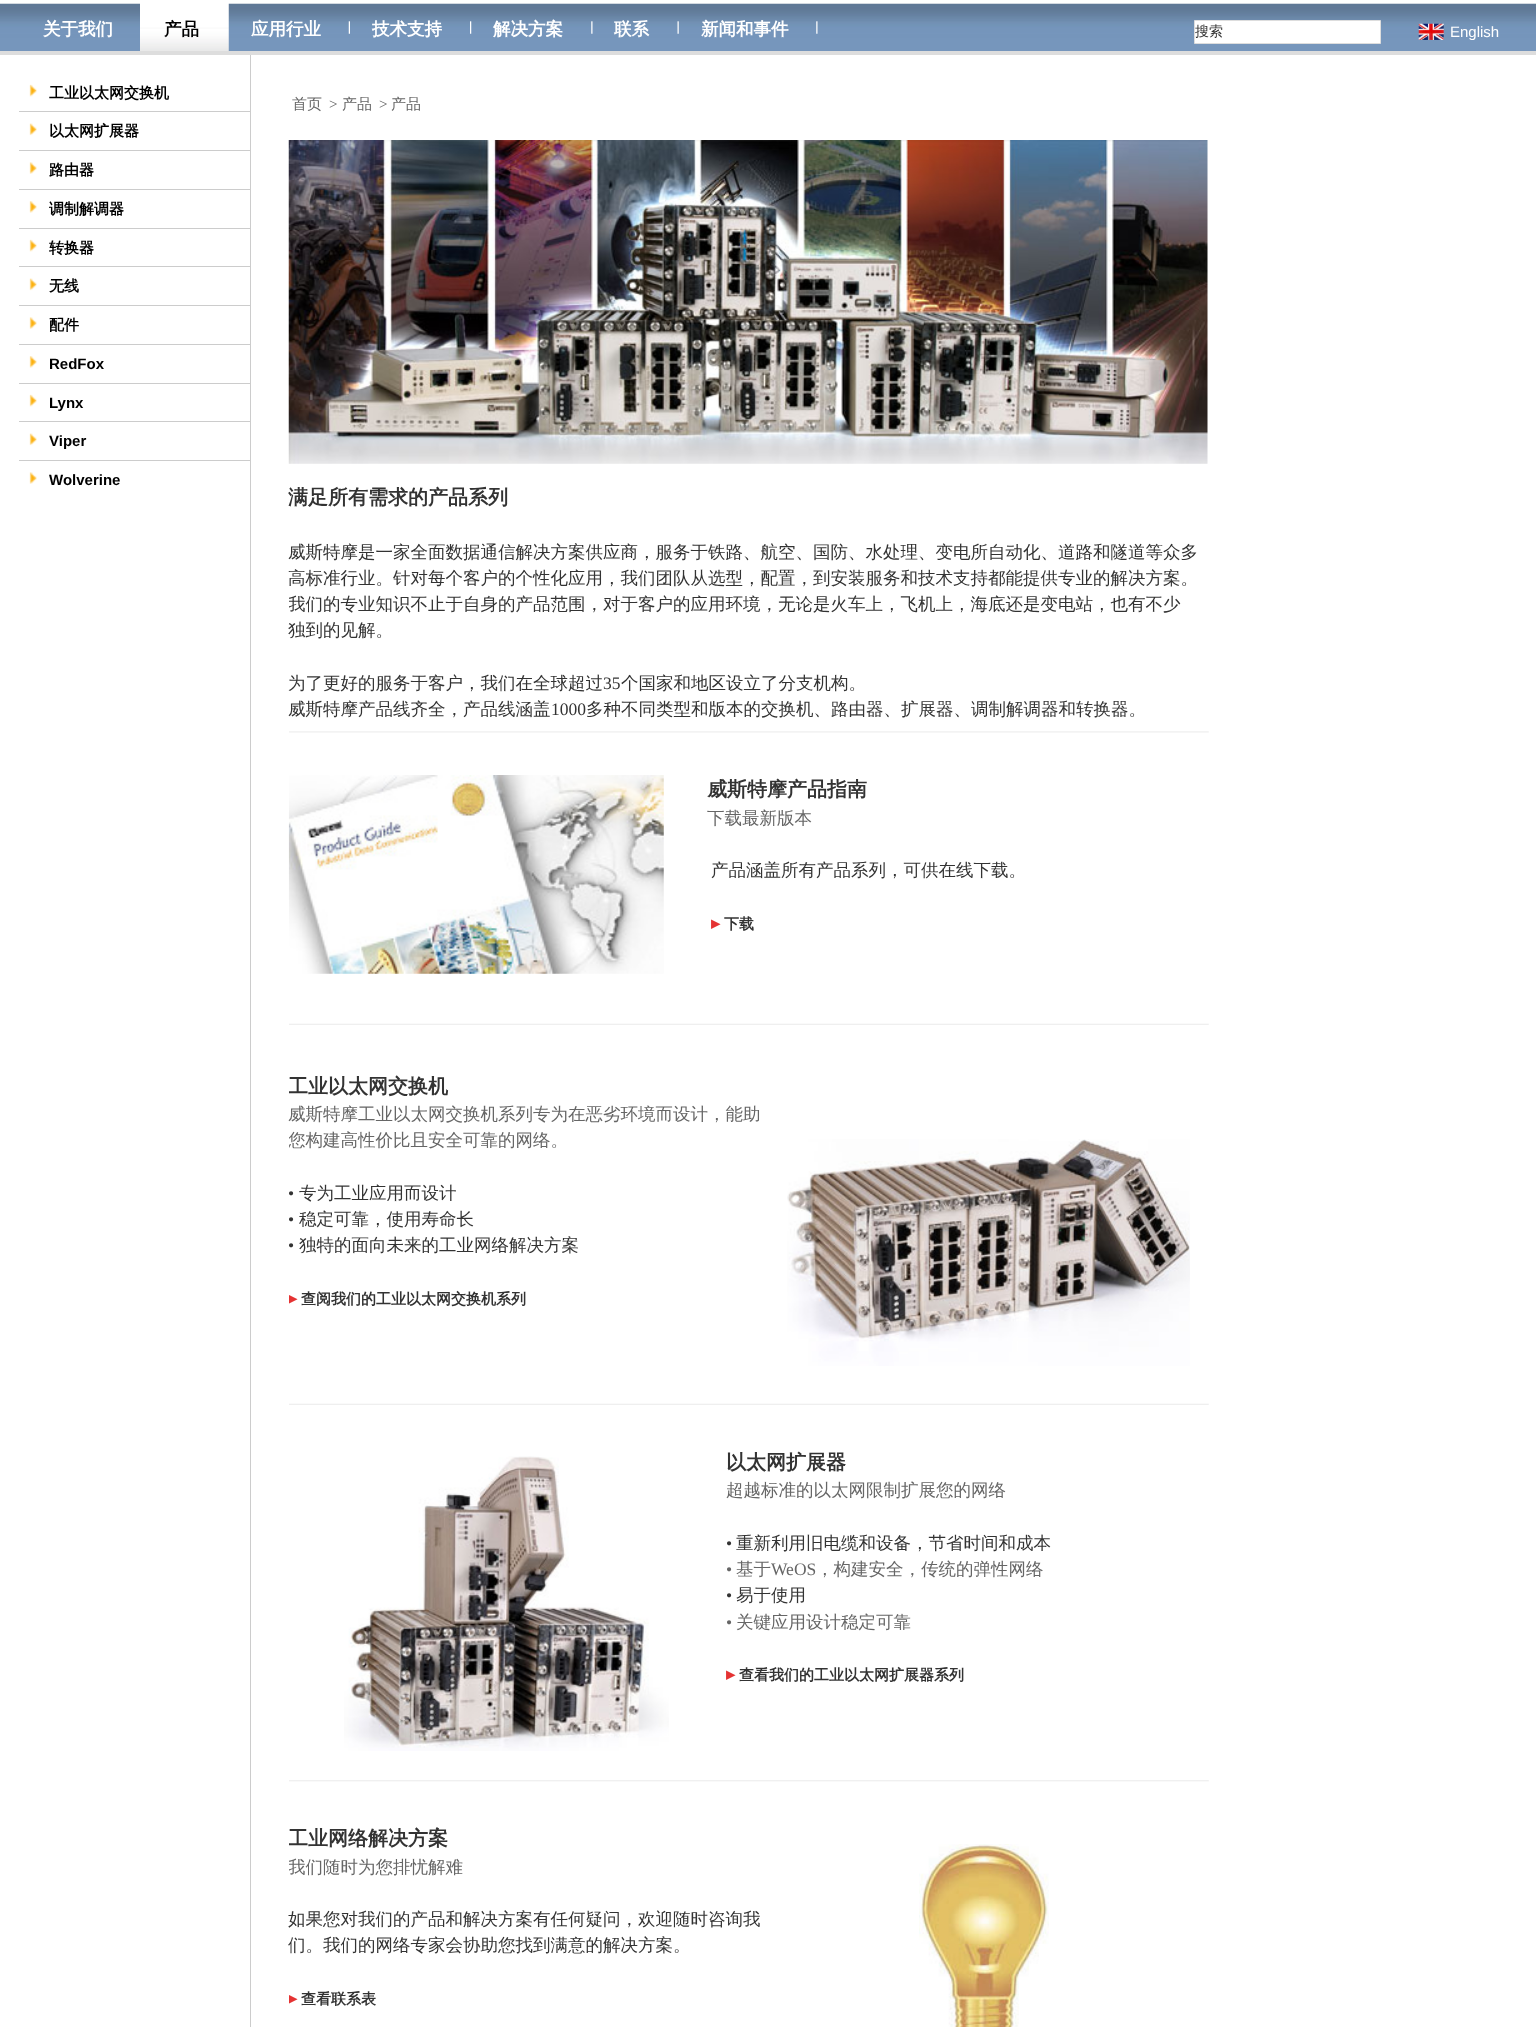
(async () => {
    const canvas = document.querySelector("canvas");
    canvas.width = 1536;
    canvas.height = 2027;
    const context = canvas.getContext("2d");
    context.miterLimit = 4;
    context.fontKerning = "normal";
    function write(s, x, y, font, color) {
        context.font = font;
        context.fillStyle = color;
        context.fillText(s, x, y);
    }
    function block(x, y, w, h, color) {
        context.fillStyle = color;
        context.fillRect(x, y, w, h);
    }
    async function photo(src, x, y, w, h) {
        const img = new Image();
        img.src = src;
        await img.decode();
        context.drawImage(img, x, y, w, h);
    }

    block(0, 0, 1536, 2027, "rgb(255, 255, 255)");
    await photo("media/1.png", 0, 3, 1536, 48);
    block(0, 51, 1536, 4, "rgb(221, 221, 221)");
    write("关于我们", 43, 35, "bold 17.5px WenQuanYi Zen Hei", "rgb(255, 255, 255)");
    await photo("media/2.png", 140, 3, 89, 48);
    write("产品", 164, 35, "bold 17.5px WenQuanYi Zen Hei", "rgb(0, 0, 0)");
    await photo("media/3.png", 348, 21, 2, 13);
    write("应用行业", 251, 35, "bold 17.5px WenQuanYi Zen Hei", "rgb(255, 255, 255)");
    await photo("media/4.png", 470, 21, 2, 13);
    write("技术支持", 372, 35, "bold 17.5px WenQuanYi Zen Hei", "rgb(255, 255, 255)");
    await photo("media/5.png", 591, 21, 2, 13);
    write("解决方案", 493, 35, "bold 17.5px WenQuanYi Zen Hei", "rgb(255, 255, 255)");
    await photo("media/6.png", 677, 21, 2, 13);
    write("联系", 614, 35, "bold 17.5px WenQuanYi Zen Hei", "rgb(255, 255, 255)");
    await photo("media/5.png", 816, 21, 2, 13);
    write("新闻和事件", 701, 35, "bold 17.5px WenQuanYi Zen Hei", "rgb(255, 255, 255)");
    context.beginPath();
    context.rect(1194.5, 20.5, 186, 23);
    context.fill();
    context.strokeStyle = "rgb(221, 221, 221)";
    context.stroke();
    write("搜索", 1195, 36, "500 14px WenQuanYi Zen Hei", "rgb(51, 51, 51)");
    await photo("media/7.png", 1418, 23, 26, 17);
    write("English", 1450, 37, "15px Liberation Sans", "rgb(255, 255, 255)");
    await photo("media/8.png", 29, 84, 8, 13);
    write("工业以太网交换机", 49, 98, "bold 15px WenQuanYi Zen Hei", "rgb(0, 0, 0)");
    block(19, 111, 231, 1, "rgb(204, 204, 204)");
    await photo("media/9.png", 29, 123, 8, 13);
    write("以太网扩展器", 49, 136, "bold 15px WenQuanYi Zen Hei", "rgb(0, 0, 0)");
    block(19, 150, 231, 1, "rgb(204, 204, 204)");
    await photo("media/10.png", 29, 162, 8, 12);
    write("路由器", 49, 175, "bold 15px WenQuanYi Zen Hei", "rgb(0, 0, 0)");
    block(19, 189, 231, 1, "rgb(204, 204, 204)");
    await photo("media/11.png", 29, 201, 8, 12);
    write("调制解调器", 49, 214, "bold 15px WenQuanYi Zen Hei", "rgb(0, 0, 0)");
    block(19, 228, 231, 1, "rgb(204, 204, 204)");
    await photo("media/8.png", 29, 239, 8, 13);
    write("转换器", 49, 253, "bold 15px WenQuanYi Zen Hei", "rgb(0, 0, 0)");
    block(19, 266, 231, 1, "rgb(204, 204, 204)");
    await photo("media/9.png", 29, 278, 8, 13);
    write("无线", 49, 291, "bold 15px WenQuanYi Zen Hei", "rgb(0, 0, 0)");
    block(19, 305, 231, 1, "rgb(204, 204, 204)");
    await photo("media/10.png", 29, 317, 8, 12);
    write("配件", 49, 330, "bold 15px WenQuanYi Zen Hei", "rgb(0, 0, 0)");
    block(19, 344, 231, 1, "rgb(204, 204, 204)");
    await photo("media/11.png", 29, 356, 8, 12);
    write("RedFox", 49, 369, "bold 15px Liberation Sans", "rgb(0, 0, 0)");
    block(19, 383, 231, 1, "rgb(204, 204, 204)");
    await photo("media/8.png", 29, 394, 8, 13);
    write("Lynx", 49, 408, "bold 15px Liberation Sans", "rgb(0, 0, 0)");
    block(19, 421, 231, 1, "rgb(204, 204, 204)");
    await photo("media/9.png", 29, 433, 8, 13);
    write("Viper", 49, 446, "bold 15px Liberation Sans", "rgb(0, 0, 0)");
    block(19, 460, 231, 1, "rgb(204, 204, 204)");
    await photo("media/10.png", 29, 472, 8, 12);
    write("Wolverine", 49, 485, "bold 15px Liberation Sans", "rgb(0, 0, 0)");
    block(250, 55, 1, 1972, "rgb(204, 204, 204)");
    write("首页", 292, 109, "500 15px WenQuanYi Zen Hei", "rgb(102, 102, 102)");
    write(">", 329, 109, "15px Liberation Serif", "rgb(102, 102, 102)");
    write("产品", 342, 109, "500 15px WenQuanYi Zen Hei", "rgb(102, 102, 102)");
    write(">", 379, 109, "15px Liberation Serif", "rgb(102, 102, 102)");
    write("产品", 391, 109, "500 15px WenQuanYi Zen Hei", "rgb(102, 102, 102)");
    await photo("media/12.png", 288, 140, 920, 324);
    write("满足所有需求的产品系列", 288, 504, "bold 20px WenQuanYi Zen Hei", "rgb(51, 51, 51)");
    write("威斯特摩是一家全面数据通信解决方案供应商，服务于铁路、航空、国防、水处理、变电所自动化、道路和隧道等众多", 288, 558, "500 17.5px WenQuanYi Zen Hei", "rgb(51, 51, 51)");
    write("高标准行业。针对每个客户的个性化应用，我们团队从选型，配置，到安装服务和技术支持都能提供专业的解决方案。", 288, 584, "500 17.5px WenQuanYi Zen Hei", "rgb(51, 51, 51)");
    context.save();
    context.beginPath();
    context.rect(289, 483, 1192, 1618);
    context.clip();
    write("我们的专业知识不止于自身的产品范围，对于客户的应用环境，无论是火车上，飞机上，海底还是变电站，也有不少", 288, 610, "500 17.5px WenQuanYi Zen Hei", "rgb(51, 51, 51)");
    context.restore();
    write("独到的见解。", 288, 636, "500 17.5px WenQuanYi Zen Hei", "rgb(51, 51, 51)");
    write("为了更好的服务于客户，我们在全球超过", 288, 689, "500 17.5px WenQuanYi Zen Hei", "rgb(51, 51, 51)");
    write("35", 603, 689, "17.5px Liberation Serif", "rgb(51, 51, 51)");
    write("个国家和地区设立了分支机构。", 621, 689, "500 17.5px WenQuanYi Zen Hei", "rgb(51, 51, 51)");
    write("威斯特摩产品线齐全，产品线涵盖", 288, 715, "500 17.5px WenQuanYi Zen Hei", "rgb(51, 51, 51)");
    write("1000", 551, 715, "17.5px Liberation Serif", "rgb(51, 51, 51)");
    write("多种不同类型和版本的交换机、路由器、扩展器、调制解调器和转换器。", 586, 715, "500 17.5px WenQuanYi Zen Hei", "rgb(51, 51, 51)");
    await photo("media/13.png", 289, 731, 920, 2);
    await photo("media/14.png", 288, 775, 376, 199);
    write("威斯特摩产品指南", 707, 796, "bold 20px WenQuanYi Zen Hei", "rgb(51, 51, 51)");
    write("下载最新版本", 707, 824, "500 17.5px WenQuanYi Zen Hei", "rgb(102, 102, 102)");
    write("产品涵盖所有产品系列，可供在线下载。", 711, 876, "500 17.5px WenQuanYi Zen Hei", "rgb(51, 51, 51)");
    write("▸", 711, 929, "bold 17.5px DejaVu Sans", "rgb(229, 51, 51)");
    write("下载", 724, 929, "bold 15px WenQuanYi Zen Hei", "rgb(51, 51, 51)");
    await photo("media/15.png", 289, 1023, 920, 2);
    context.save();
    context.beginPath();
    context.rect(289, 483, 1192, 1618);
    context.clip();
    write("工业以太网交换机", 288, 1093, "bold 20px WenQuanYi Zen Hei", "rgb(51, 51, 51)");
    context.restore();
    await photo("media/16.png", 787, 1139, 403, 227);
    write("威斯特摩工业以太网交换机系列专为在恶劣环境而设计，能助", 288, 1120, "500 17.5px WenQuanYi Zen Hei", "rgb(102, 102, 102)");
    context.save();
    context.beginPath();
    context.rect(289, 483, 1192, 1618);
    context.clip();
    write("您构建高性价比且安全可靠的网络。", 288, 1146, "500 17.5px WenQuanYi Zen Hei", "rgb(102, 102, 102)");
    context.restore();
    write("•", 288, 1199, "17.5px Liberation Serif", "rgb(51, 51, 51)");
    write("专为工业应用而设计", 299, 1199, "500 17.5px WenQuanYi Zen Hei", "rgb(51, 51, 51)");
    write("•", 288, 1225, "17.5px Liberation Serif", "rgb(51, 51, 51)");
    write("稳定可靠，使用寿命长", 299, 1225, "500 17.5px WenQuanYi Zen Hei", "rgb(51, 51, 51)");
    write("•", 288, 1251, "17.5px Liberation Serif", "rgb(51, 51, 51)");
    write("独特的面向未来的工业网络解决方案", 299, 1251, "500 17.5px WenQuanYi Zen Hei", "rgb(51, 51, 51)");
    context.save();
    context.beginPath();
    context.rect(289, 483, 1192, 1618);
    context.clip();
    write("▸", 288, 1304, "bold 17.5px DejaVu Sans", "rgb(229, 51, 51)");
    context.restore();
    write("查阅我们的工业以太网交换机系列", 301, 1304, "bold 15px WenQuanYi Zen Hei", "rgb(51, 51, 51)");
    await photo("media/15.png", 289, 1403, 920, 2);
    await photo("media/17.png", 344, 1456, 325, 295);
    write("以太网扩展器", 726, 1469, "bold 20px WenQuanYi Zen Hei", "rgb(51, 51, 51)");
    write("超越标准的以太网限制扩展您的网络", 726, 1496, "500 17.5px WenQuanYi Zen Hei", "rgb(102, 102, 102)");
    write("•", 726, 1549, "17.5px Liberation Serif", "rgb(51, 51, 51)");
    write("重新利用旧电缆和设备，节省时间和成本", 736, 1549, "500 17.5px WenQuanYi Zen Hei", "rgb(51, 51, 51)");
    write("•", 726, 1575, "17.5px Liberation Serif", "rgb(102, 102, 102)");
    write("基于", 736, 1575, "500 17.5px WenQuanYi Zen Hei", "rgb(102, 102, 102)");
    write("WeOS", 771, 1575, "17.5px Liberation Serif", "rgb(102, 102, 102)");
    write("，构建安全，传统的弹性网络", 816, 1575, "500 17.5px WenQuanYi Zen Hei", "rgb(102, 102, 102)");
    write("•", 726, 1601, "17.5px Liberation Serif", "rgb(51, 51, 51)");
    write("易于使用", 736, 1601, "500 17.5px WenQuanYi Zen Hei", "rgb(51, 51, 51)");
    write("•", 726, 1628, "17.5px Liberation Serif", "rgb(102, 102, 102)");
    write("关键应用设计稳定可靠", 736, 1628, "500 17.5px WenQuanYi Zen Hei", "rgb(102, 102, 102)");
    write("▸", 726, 1680, "bold 17.5px DejaVu Sans", "rgb(229, 51, 51)");
    write("查看我们的工业以太网扩展器系列", 739, 1680, "bold 15px WenQuanYi Zen Hei", "rgb(51, 51, 51)");
    await photo("media/18.png", 289, 1780, 920, 2);
    context.save();
    context.beginPath();
    context.rect(289, 483, 1192, 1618);
    context.clip();
    write("工业网络解决方案", 288, 1845, "bold 20px WenQuanYi Zen Hei", "rgb(51, 51, 51)");
    write("我们随时为您排忧解难", 288, 1873, "500 17.5px WenQuanYi Zen Hei", "rgb(102, 102, 102)");
    context.restore();
    await photo("media/19.png", 919, 1844, 130, 183);
    write("如果您对我们的产品和解决方案有任何疑问，欢迎随时咨询我", 288, 1925, "500 17.5px WenQuanYi Zen Hei", "rgb(51, 51, 51)");
    write("们。我们的网络专家会协助您找到满意的解决方案。", 288, 1951, "500 17.5px WenQuanYi Zen Hei", "rgb(51, 51, 51)");
    context.save();
    context.beginPath();
    context.rect(289, 483, 1192, 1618);
    context.clip();
    write("▸", 288, 2004, "bold 17.5px DejaVu Sans", "rgb(229, 51, 51)");
    context.restore();
    write("查看联系表", 301, 2004, "bold 15px WenQuanYi Zen Hei", "rgb(51, 51, 51)");
})();
